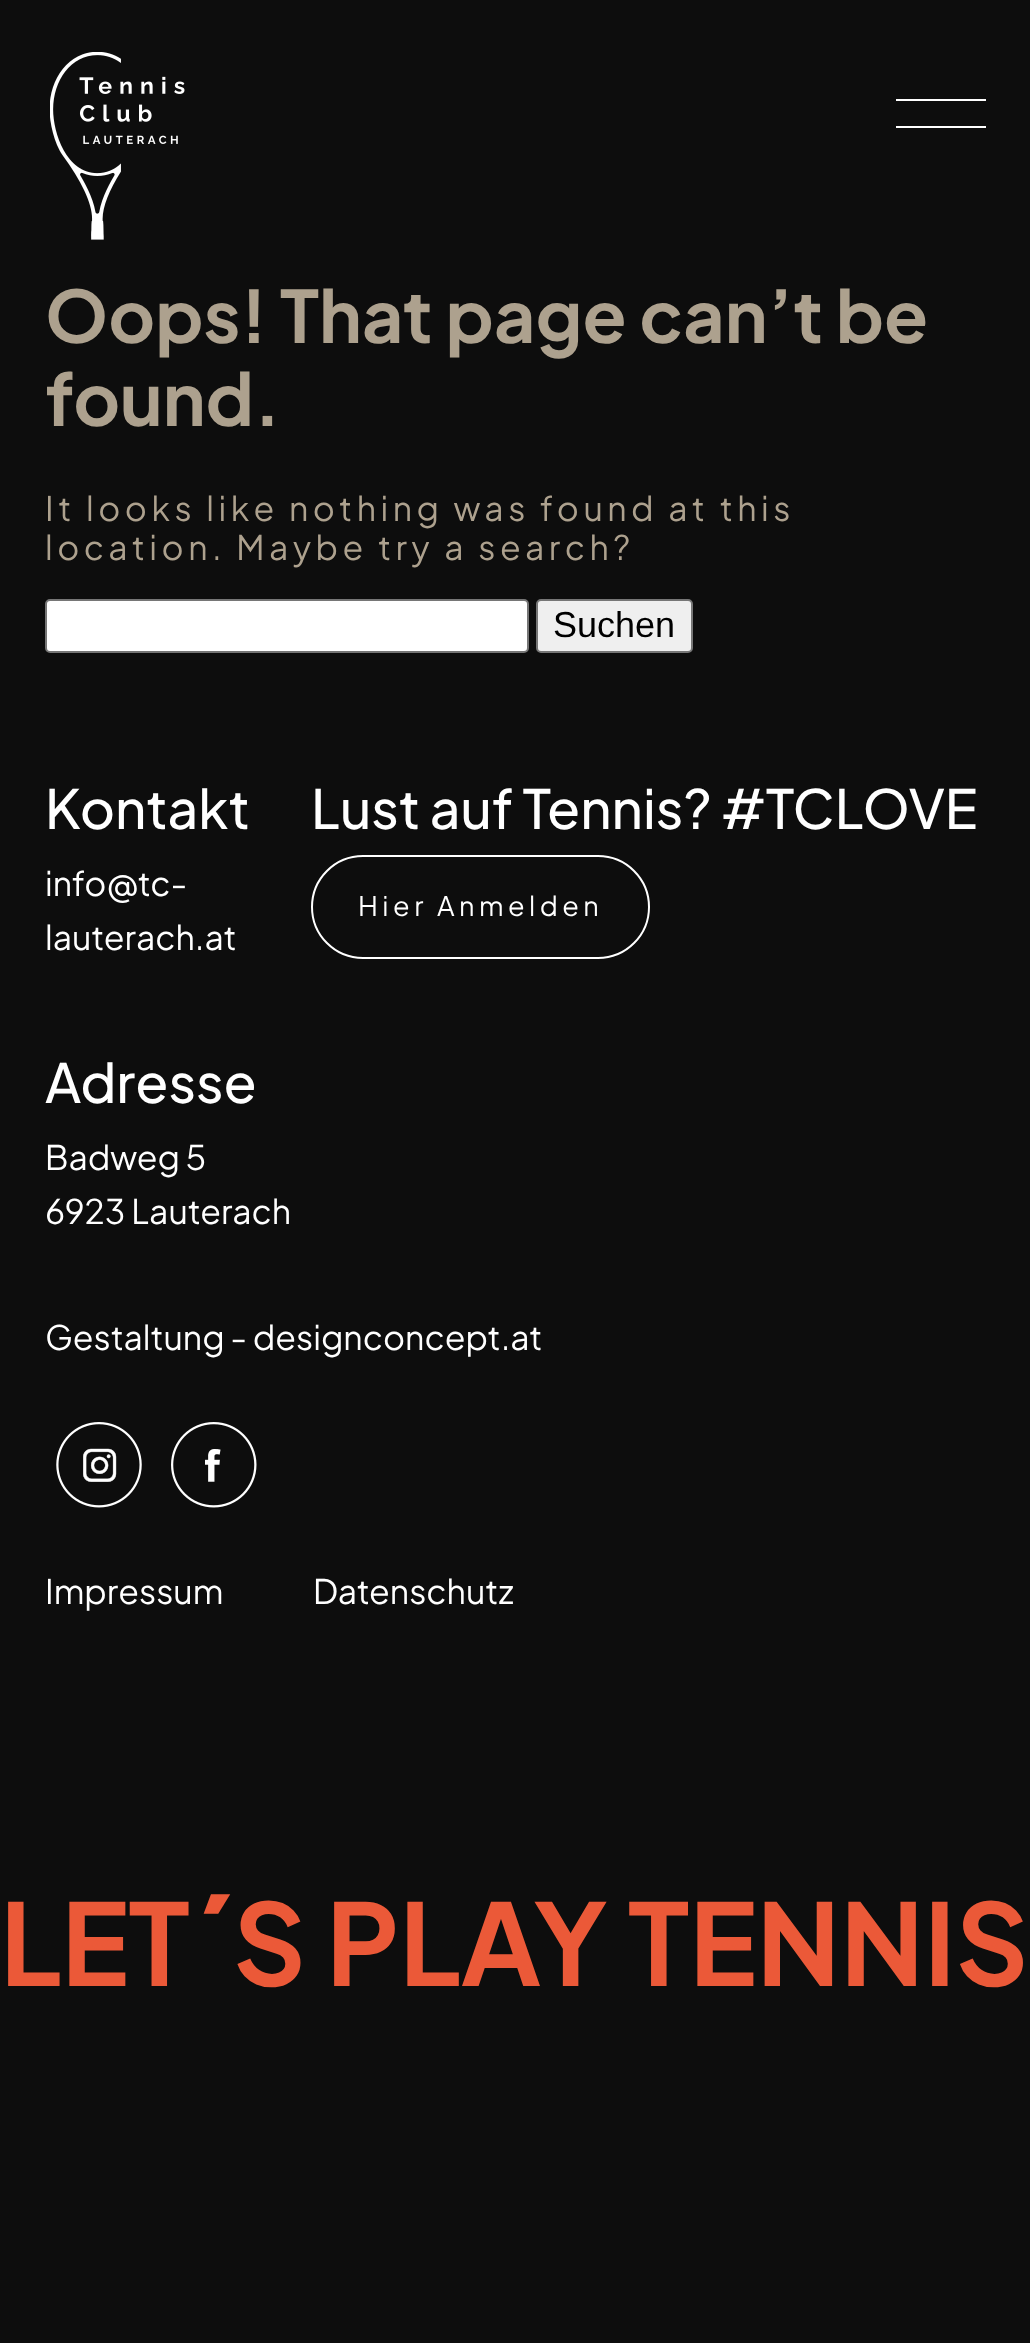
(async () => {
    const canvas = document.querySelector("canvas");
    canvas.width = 1030;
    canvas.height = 2343;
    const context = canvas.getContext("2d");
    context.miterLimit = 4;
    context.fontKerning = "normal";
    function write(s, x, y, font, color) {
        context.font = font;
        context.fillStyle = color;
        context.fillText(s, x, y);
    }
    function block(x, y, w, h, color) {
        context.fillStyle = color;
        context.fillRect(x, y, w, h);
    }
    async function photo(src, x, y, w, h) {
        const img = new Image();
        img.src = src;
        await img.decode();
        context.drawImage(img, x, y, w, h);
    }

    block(0, 0, 1030, 2343, "rgb(13, 13, 13)");
    await photo("media/1.png", 50, 52, 135, 188);
    block(896, 99, 90, 2, "rgb(255, 255, 255)");
    block(896, 126, 90, 2, "rgb(255, 255, 255)");
    write("Oops! That page can’t be", 45, 343, "bold 72px Plus Jakarta Sans", "rgb(173, 161, 142)");
    write("found.", 45, 426, "bold 72px Plus Jakarta Sans", "rgb(173, 161, 142)");
    context.letterSpacing = "4.5px";
    write("It looks like nothing was found at this", 45, 521, "33.75px Plus Jakarta Sans", "rgb(173, 161, 142)");
    write("location. Maybe try a search?", 45, 560, "33.75px Plus Jakarta Sans", "rgb(173, 161, 142)");
    context.fillStyle = "rgb(255, 255, 255)";
    context.beginPath();
    context.roundRect(46, 600, 482, 52, 4);
    context.fill();
    context.strokeStyle = "rgb(118, 118, 118)";
    context.lineWidth = 2;
    context.stroke();
    context.fillStyle = "rgb(239, 239, 239)";
    context.beginPath();
    context.roundRect(537, 600, 155, 52, 4);
    context.fill();
    context.stroke();
    context.letterSpacing = "0px";
    write("Suchen", 553, 637, "36px Liberation Sans", "rgb(0, 0, 0)");
    write("Kontakt", 45, 829, "500 54px Plus Jakarta Sans", "rgb(255, 255, 255)");
    write("info@tc-", 45, 896, "33.75px Plus Jakarta Sans", "rgb(255, 255, 255)");
    write("lauterach.at", 45, 950, "33.75px Plus Jakarta Sans", "rgb(255, 255, 255)");
    write("Lust auf Tennis? #TCLOVE", 311, 829, "500 54px Plus Jakarta Sans", "rgb(255, 255, 255)");
    context.beginPath();
    context.roundRect(312, 856, 337, 102, 51);
    context.strokeStyle = "rgb(255, 255, 255)";
    context.stroke();
    context.letterSpacing = "4.5px";
    write("Hier Anmelden", 358, 916, "27px Plus Jakarta Sans", "rgb(255, 255, 255)");
    context.letterSpacing = "0px";
    write("Adresse", 45, 1103, "500 54px Plus Jakarta Sans", "rgb(255, 255, 255)");
    write("Badweg 5", 45, 1170, "33.75px Plus Jakarta Sans", "rgb(255, 255, 255)");
    write("6923 Lauterach", 45, 1224, "33.75px Plus Jakarta Sans", "rgb(255, 255, 255)");
    write("Gestaltung - designconcept.at", 45, 1350, "33.75px Plus Jakarta Sans", "rgb(255, 255, 255)");
    await photo("media/2.png", 56, 1422, 86, 86);
    await photo("media/3.png", 171, 1422, 86, 86);
    write("Impressum", 45, 1604, "33.75px Plus Jakarta Sans", "rgb(255, 255, 255)");
    write("Datenschutz", 313, 1604, "33.75px Plus Jakarta Sans", "rgb(255, 255, 255)");
    write("LET´S PLAY TENNIS", 0, 1986, "bold 113px Plus Jakarta Sans", "rgb(235, 89, 56)");
})();
